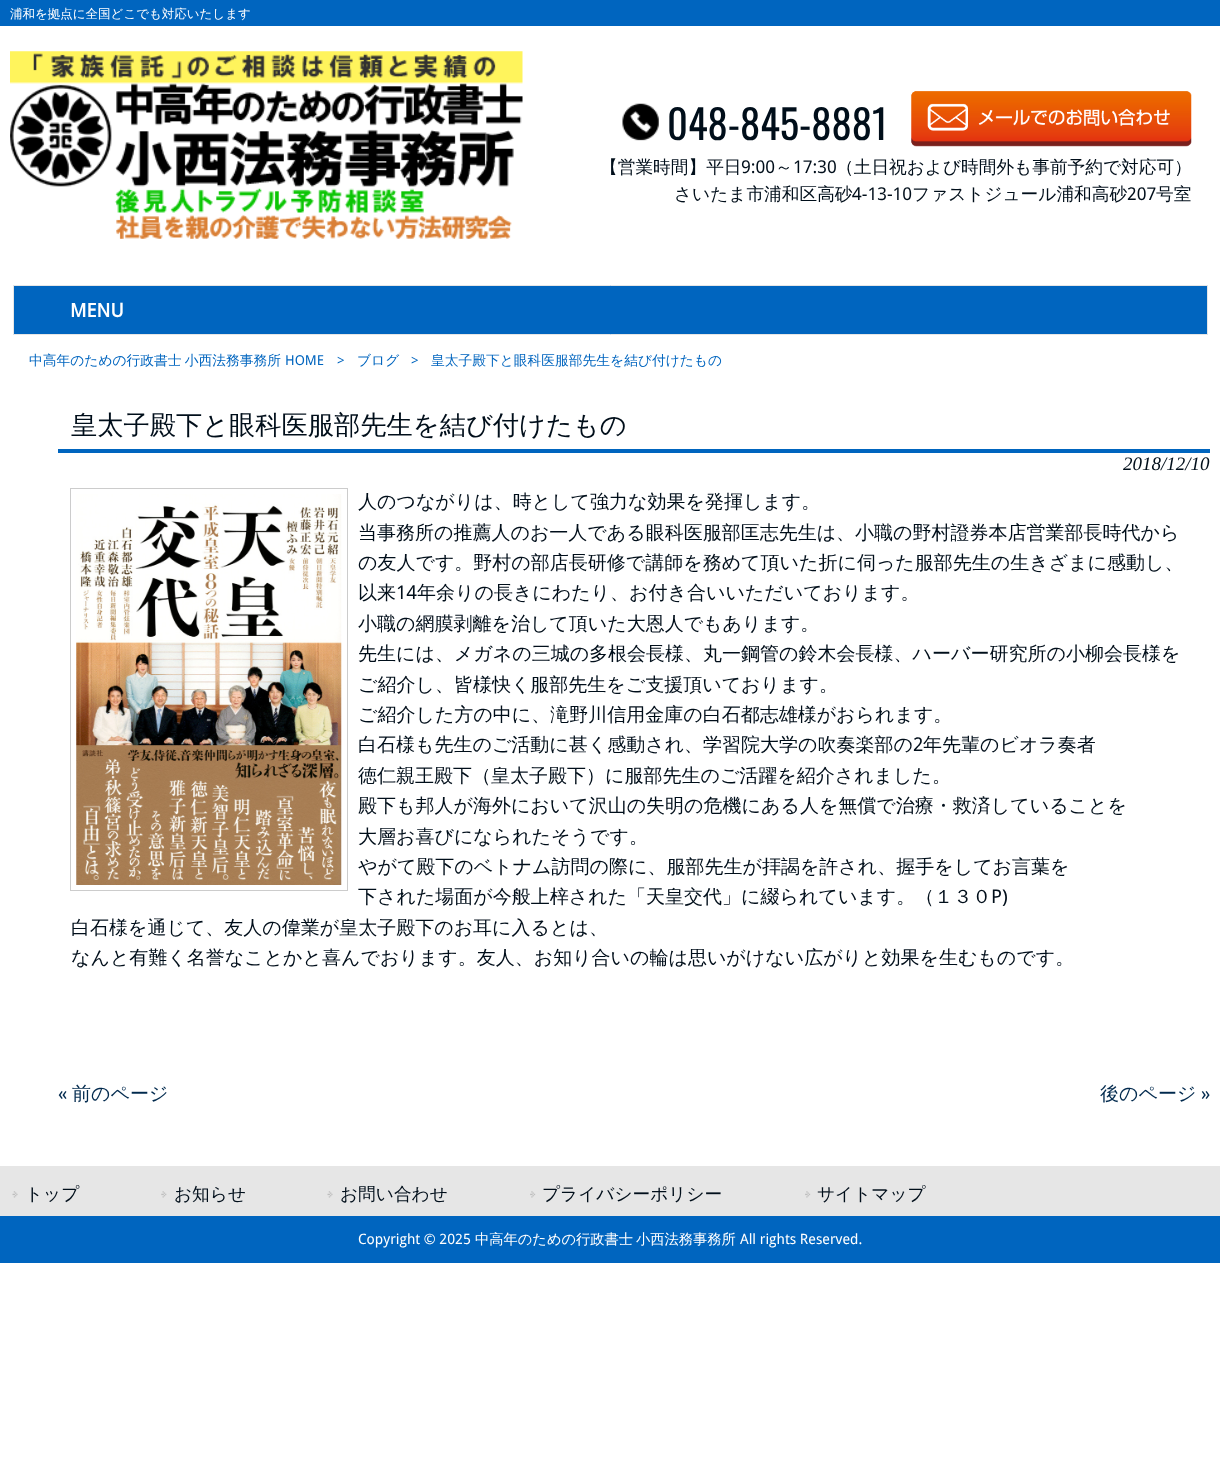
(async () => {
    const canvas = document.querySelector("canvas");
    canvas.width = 1220;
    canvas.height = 1464;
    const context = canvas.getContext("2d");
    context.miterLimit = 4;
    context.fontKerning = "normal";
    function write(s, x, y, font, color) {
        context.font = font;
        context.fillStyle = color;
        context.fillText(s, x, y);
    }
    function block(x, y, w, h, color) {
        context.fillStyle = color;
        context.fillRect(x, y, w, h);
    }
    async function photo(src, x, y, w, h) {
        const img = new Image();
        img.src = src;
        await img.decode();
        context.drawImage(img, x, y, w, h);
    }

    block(0, 0, 1220, 1464, "rgb(255, 255, 255)");
    block(0, 0, 1220, 26, "rgb(0, 101, 191)");
    write("浦和を拠点に全国どこでも対応いたします", 10, 18, "500 12.5px WenQuanYi Zen Hei", "rgb(255, 255, 255)");
    await photo("media/1.png", 10, 51, 513, 188);
    await photo("media/2.png", 622, 103, 37, 38);
    write("048-845-8881", 667, 140, "40.5px Oswald", "rgb(0, 14, 26)");
    await photo("media/3.png", 911, 91, 281, 56);
    write("【営業時間】平日", 600, 173, "500 17.7px WenQuanYi Zen Hei", "rgb(0, 14, 26)");
    write("9:00", 741, 173, "17.7px Droid Sans", "rgb(0, 14, 26)");
    write("～", 775, 173, "500 17.7px WenQuanYi Zen Hei", "rgb(0, 14, 26)");
    write("17:30", 793, 173, "17.7px Droid Sans", "rgb(0, 14, 26)");
    write("（土日祝および時間外も事前予約で対応可）", 836, 173, "500 17.7px WenQuanYi Zen Hei", "rgb(0, 14, 26)");
    write("さいたま市浦和区高砂", 674, 200, "500 17.7px WenQuanYi Zen Hei", "rgb(0, 14, 26)");
    write("4-13-10", 852, 200, "17.7px Droid Sans", "rgb(0, 14, 26)");
    write("ファストジュール浦和高砂", 912, 200, "500 17.7px WenQuanYi Zen Hei", "rgb(0, 14, 26)");
    write("207", 1127, 200, "17.7px Droid Sans", "rgb(0, 14, 26)");
    write("号室", 1156, 200, "500 17.7px WenQuanYi Zen Hei", "rgb(0, 14, 26)");
    context.fillStyle = "rgb(0, 101, 191)";
    context.beginPath();
    context.rect(13.5, 285.5, 1194, 49);
    context.fill();
    context.strokeStyle = "rgb(230, 230, 230)";
    context.stroke();
    write("MENU", 70, 317, "bold 19px Droid Sans", "rgb(255, 255, 255)");
    context.wordSpacing = "-1px";
    write("中高年のための行政書士 小西法務事務所", 29, 365, "500 13.75px WenQuanYi Zen Hei", "rgb(0, 101, 191)");
    context.wordSpacing = "0px";
    write("HOME", 285, 365, "13.75px Droid Sans", "rgb(0, 101, 191)");
    write(">", 337, 365, "13.75px Droid Sans", "rgb(0, 101, 191)");
    write("ブログ", 357, 365, "500 13.75px WenQuanYi Zen Hei", "rgb(0, 101, 191)");
    write(">", 411, 365, "13.75px Droid Sans", "rgb(0, 101, 191)");
    write("皇太子殿下と眼科医服部先生を結び付けたもの", 431, 365, "500 13.75px WenQuanYi Zen Hei", "rgb(0, 101, 191)");
    block(58, 449, 1152, 4, "rgb(0, 101, 191)");
    write("皇太子殿下と眼科医服部先生を結び付けたもの", 71, 434, "500 26.25px WenQuanYi Zen Hei", "rgb(0, 14, 26)");
    write("2018/12/10", 1123, 470, "italic 19px Liberation Serif", "rgb(0, 14, 26)");
    context.strokeStyle = "rgb(204, 204, 204)";
    context.strokeRect(70.5, 488.5, 277, 402);
    await photo("media/4.png", 76, 494, 266, 391);
    write("人のつながりは、時として強力な効果を発揮します。", 358, 508, "500 19px WenQuanYi Zen Hei", "rgb(0, 14, 26)");
    write("当事務所の推薦人のお一人である眼科医服部匡志先生は、小職の野村證券本店営業部長時代から", 358, 539, "500 19px WenQuanYi Zen Hei", "rgb(0, 14, 26)");
    write("の友人です。野村の部店長研修で講師を務めて頂いた折に伺った服部先生の生きざまに感動し、", 358, 569, "500 19px WenQuanYi Zen Hei", "rgb(0, 14, 26)");
    write("以来", 358, 599, "500 19px WenQuanYi Zen Hei", "rgb(0, 14, 26)");
    write("14", 396, 599, "19px Droid Sans", "rgb(0, 14, 26)");
    write("年余りの長きにわたり、お付き合いいただいております。", 417, 599, "500 19px WenQuanYi Zen Hei", "rgb(0, 14, 26)");
    write("小職の網膜剥離を治して頂いた大恩人でもあります。", 358, 630, "500 19px WenQuanYi Zen Hei", "rgb(0, 14, 26)");
    write("先生には、メガネの三城の多根会長様、丸一鋼管の鈴木会長様、ハーバー研究所の小柳会長様を", 358, 660, "500 19px WenQuanYi Zen Hei", "rgb(0, 14, 26)");
    write("ご紹介し、皆様快く服部先生をご支援頂いております。", 358, 691, "500 19px WenQuanYi Zen Hei", "rgb(0, 14, 26)");
    write("ご紹介した方の中に、滝野川信用金庫の白石都志雄様がおられます。", 358, 721, "500 19px WenQuanYi Zen Hei", "rgb(0, 14, 26)");
    write("白石様も先生のご活動に甚く感動され、学習院大学の吹奏楽部の", 358, 751, "500 19px WenQuanYi Zen Hei", "rgb(0, 14, 26)");
    write("2", 913, 751, "19px Droid Sans", "rgb(0, 14, 26)");
    write("年先輩のビオラ奏者", 923, 751, "500 19px WenQuanYi Zen Hei", "rgb(0, 14, 26)");
    write("徳仁親王殿下（皇太子殿下）に服部先生のご活躍を紹介されました。", 358, 782, "500 19px WenQuanYi Zen Hei", "rgb(0, 14, 26)");
    write("殿下も邦人が海外において沢山の失明の危機にある人を無償で治療・救済していることを", 358, 812, "500 19px WenQuanYi Zen Hei", "rgb(0, 14, 26)");
    write("大層お喜びになられたそうです。", 358, 843, "500 19px WenQuanYi Zen Hei", "rgb(0, 14, 26)");
    write("やがて殿下のベトナム訪問の際に、服部先生が拝謁を許され、握手をしてお言葉を", 358, 873, "500 19px WenQuanYi Zen Hei", "rgb(0, 14, 26)");
    write("下された場面が今般上梓された「天皇交代」に綴られています。（１３０", 358, 903, "500 19px WenQuanYi Zen Hei", "rgb(0, 14, 26)");
    write("P)", 991, 903, "19px Droid Sans", "rgb(0, 14, 26)");
    write("白石様を通じて、友人の偉業が皇太子殿下のお耳に入るとは、", 71, 934, "500 19px WenQuanYi Zen Hei", "rgb(0, 14, 26)");
    write("なんと有難く名誉なことかと喜んでおります。友人、お知り合いの輪は思いがけない広がりと効果を生むものです。", 71, 964, "500 19px WenQuanYi Zen Hei", "rgb(0, 14, 26)");
    write("«", 58, 1100, "19px Droid Sans", "rgb(0, 41, 77)");
    write("前のページ", 72, 1100, "500 19px WenQuanYi Zen Hei", "rgb(0, 41, 77)");
    write("後のページ", 1100, 1100, "500 19px WenQuanYi Zen Hei", "rgb(0, 41, 77)");
    write("»", 1201, 1100, "19px Droid Sans", "rgb(0, 41, 77)");
    block(0, 1166, 1220, 50, "rgb(230, 230, 230)");
    await photo("media/5.png", 12, 1191, 6, 7);
    write("トップ", 25, 1200, "500 17.7px WenQuanYi Zen Hei", "rgb(0, 14, 26)");
    await photo("media/6.png", 161, 1191, 6, 7);
    write("お知らせ", 174, 1200, "500 17.7px WenQuanYi Zen Hei", "rgb(0, 14, 26)");
    await photo("media/5.png", 327, 1191, 6, 7);
    write("お問い合わせ", 340, 1200, "500 17.7px WenQuanYi Zen Hei", "rgb(0, 14, 26)");
    await photo("media/7.png", 530, 1191, 6, 7);
    write("プライバシーポリシー", 542, 1200, "500 17.7px WenQuanYi Zen Hei", "rgb(0, 14, 26)");
    await photo("media/7.png", 805, 1191, 6, 7);
    write("サイトマップ", 817, 1200, "500 17.7px WenQuanYi Zen Hei", "rgb(0, 14, 26)");
    block(0, 1216, 1220, 47, "rgb(0, 101, 191)");
    write("Copyright © 2025", 358, 1244, "14.25px Droid Sans", "rgb(255, 255, 255)");
    write("中高年のための行政書士", 475, 1244, "500 14.25px WenQuanYi Zen Hei", "rgb(255, 255, 255)");
    write("小西法務事務所", 636, 1244, "500 14.25px WenQuanYi Zen Hei", "rgb(255, 255, 255)");
    write("All rights Reserved.", 740, 1244, "14.25px Droid Sans", "rgb(255, 255, 255)");
})();
